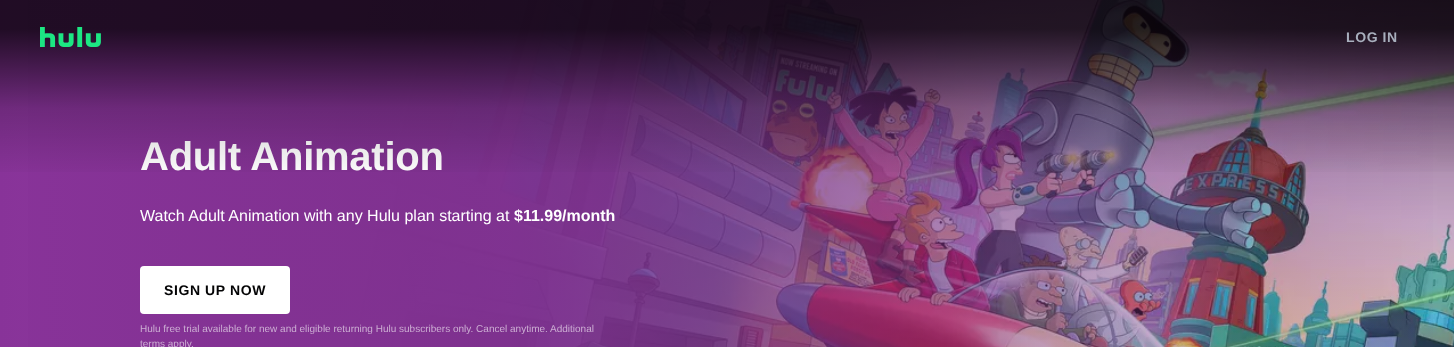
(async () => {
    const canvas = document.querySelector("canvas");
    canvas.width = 1454;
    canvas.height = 347;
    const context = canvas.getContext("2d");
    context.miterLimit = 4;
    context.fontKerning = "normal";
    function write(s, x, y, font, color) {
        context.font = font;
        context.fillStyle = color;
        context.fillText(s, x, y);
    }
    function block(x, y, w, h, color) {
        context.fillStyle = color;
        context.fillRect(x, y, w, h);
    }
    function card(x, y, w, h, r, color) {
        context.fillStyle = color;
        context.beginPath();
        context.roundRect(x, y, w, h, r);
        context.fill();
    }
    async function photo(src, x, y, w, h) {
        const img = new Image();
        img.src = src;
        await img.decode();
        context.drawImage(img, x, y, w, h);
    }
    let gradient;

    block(0, 0, 1454, 347, "rgb(255, 255, 255)");
    await photo("media/2.png", 28, 0, 1426, 347);
    gradient = context.createLinearGradient(727, -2, 727, 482);
    gradient.addColorStop(0, "rgba(0, 0, 0, 0.4)");
    gradient.addColorStop(1, "rgba(0, 0, 0, 0)");
    context.fillStyle = gradient;
    context.fillRect(28, 0, 1426, 347);
    gradient = context.createLinearGradient(-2, 240, 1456, 240);
    gradient.addColorStop(0, "rgb(136, 51, 153)");
    gradient.addColorStop(0.35, "rgba(136, 51, 153, 0.9)");
    gradient.addColorStop(1, "rgba(136, 51, 153, 0)");
    context.fillStyle = gradient;
    context.fillRect(0, 0, 1433, 347);
    context.letterSpacing = "-0.25px";
    write("Adult Animation", 140, 170, "bold 40px Liberation Sans", "rgb(255, 255, 255)");
    gradient = context.createLinearGradient(727, 0, 727, 180);
    gradient.addColorStop(0.16, "rgba(0, 0, 0, 0.76)");
    gradient.addColorStop(0.6, "rgba(0, 0, 0, 0.19)");
    gradient.addColorStop(1, "rgba(0, 0, 0, 0)");
    context.fillStyle = gradient;
    context.fillRect(0, 0, 1454, 172);
    await photo("media/1.png", 40, 27, 61, 20);
    context.letterSpacing = "0.6px";
    write("LOG IN", 1346, 42, "bold 14px Liberation Sans", "rgb(168, 175, 189)");
    context.letterSpacing = "0px";
    write("Watch Adult Animation with any Hulu plan starting at", 140, 221, "16px Liberation Sans", "rgb(255, 255, 255)");
    write("$11.99/month", 514, 221, "bold 16px Liberation Sans", "rgb(255, 255, 255)");
    card(140, 266, 150, 48, 4, "rgb(255, 255, 255)");
    context.letterSpacing = "0.6px";
    write("SIGN UP NOW", 164, 295, "bold 14px Liberation Sans", "rgb(4, 4, 5)");
    context.letterSpacing = "0px";
    write("Hulu free trial available for new and eligible returning Hulu subscribers only. Cancel anytime. Additional", 140, 332, "10px Liberation Sans", "rgb(204, 173, 211)");
    write("terms apply.", 140, 347, "10px Liberation Sans", "rgb(204, 173, 211)");
})();
